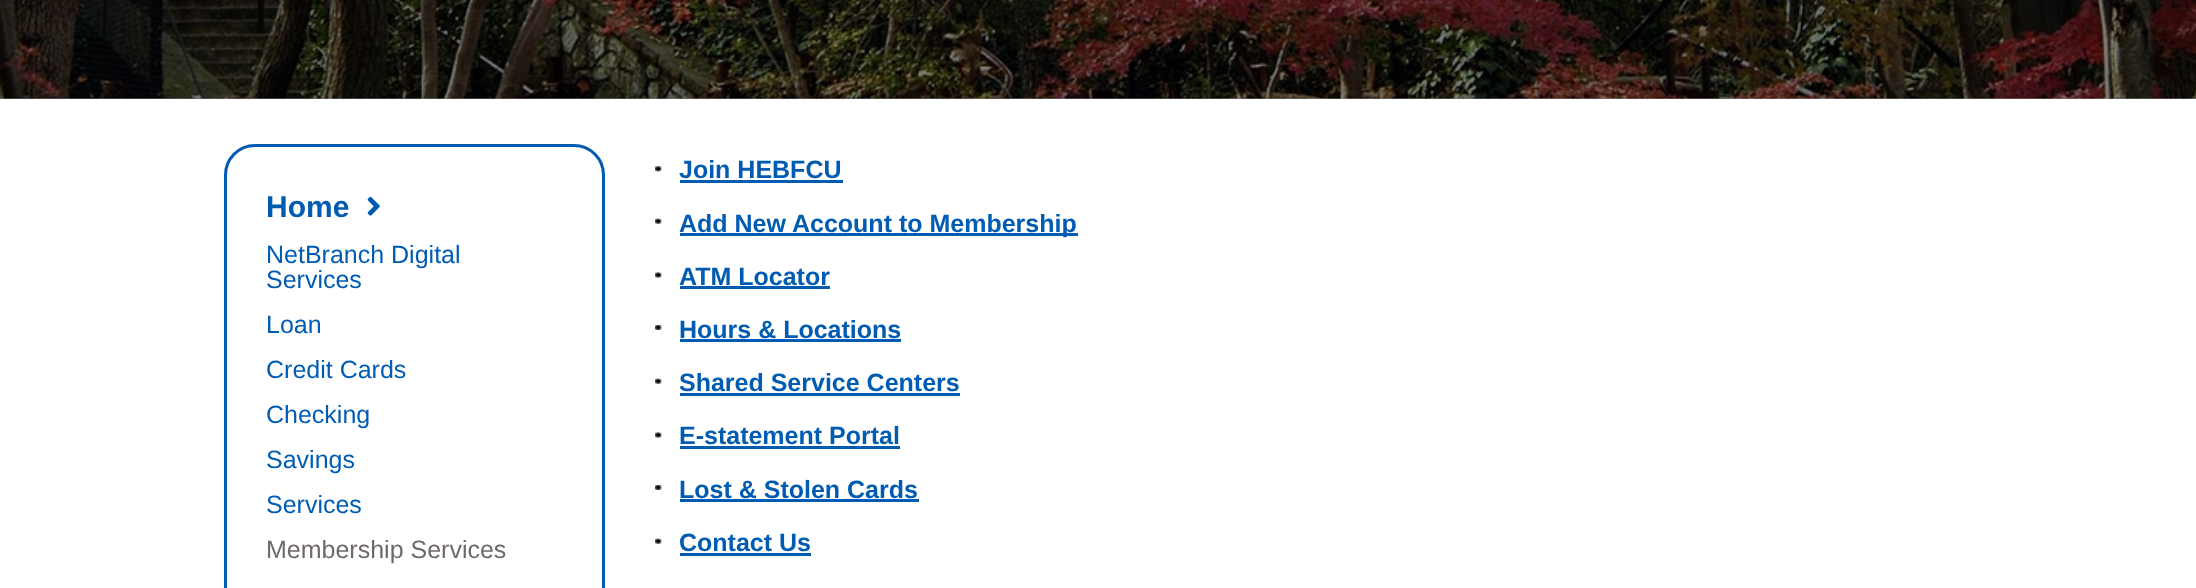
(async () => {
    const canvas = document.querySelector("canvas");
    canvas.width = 2196;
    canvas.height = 588;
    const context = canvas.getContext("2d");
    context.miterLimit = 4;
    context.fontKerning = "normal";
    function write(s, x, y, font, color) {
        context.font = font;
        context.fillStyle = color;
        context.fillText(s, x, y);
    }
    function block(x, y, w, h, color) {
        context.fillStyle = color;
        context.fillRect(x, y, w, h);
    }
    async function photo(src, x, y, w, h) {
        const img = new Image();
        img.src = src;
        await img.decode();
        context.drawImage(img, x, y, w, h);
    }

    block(0, 0, 2196, 588, "rgb(255, 255, 255)");
    block(0, 98, 2196, 1, "rgb(128, 128, 128)");
    await photo("media/1.png", 0, 0, 2196, 99);
    context.beginPath();
    context.roundRect(225.5, 145.5, 378, 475, 29.5);
    context.strokeStyle = "rgb(0, 92, 179)";
    context.lineWidth = 3;
    context.stroke();
    write("Home", 266, 217, "bold 30px Liberation Sans", "rgb(0, 92, 179)");
    await photo("media/2.png", 367, 196, 13, 20);
    write("NetBranch Digital", 266, 263, "25px Liberation Sans", "rgb(0, 92, 179)");
    write("Services", 266, 288, "25px Liberation Sans", "rgb(0, 92, 179)");
    write("Loan", 266, 333, "25px Liberation Sans", "rgb(0, 92, 179)");
    write("Credit Cards", 266, 378, "25px Liberation Sans", "rgb(0, 92, 179)");
    write("Checking", 266, 423, "25px Liberation Sans", "rgb(0, 92, 179)");
    write("Savings", 266, 468, "25px Liberation Sans", "rgb(0, 92, 179)");
    write("Services", 266, 513, "25px Liberation Sans", "rgb(0, 92, 179)");
    write("Membership Services", 266, 558, "25px Liberation Sans", "rgb(110, 104, 108)");
    await photo("media/3.png", 655, 166, 7, 6);
    write("Join HEBFCU", 679, 178, "bold 25px Liberation Sans", "rgb(0, 92, 179)");
    block(680, 180, 163, 3, "rgb(0, 92, 179)");
    await photo("media/4.png", 655, 218, 7, 6);
    block(680, 233, 398, 3, "rgb(0, 92, 179)");
    write("Add New Account to Membership", 679, 232, "bold 25px Liberation Sans", "rgb(0, 92, 179)");
    await photo("media/5.png", 655, 272, 7, 6);
    write("ATM Locator", 679, 285, "bold 25px Liberation Sans", "rgb(0, 92, 179)");
    block(680, 286, 150, 3, "rgb(0, 92, 179)");
    await photo("media/6.png", 655, 325, 7, 5);
    write("Hours & Locations", 679, 338, "bold 25px Liberation Sans", "rgb(0, 92, 179)");
    block(680, 339, 221, 3, "rgb(0, 92, 179)");
    await photo("media/4.png", 655, 378, 7, 6);
    write("Shared Service Centers", 679, 391, "bold 25px Liberation Sans", "rgb(0, 92, 179)");
    block(680, 393, 280, 3, "rgb(0, 92, 179)");
    await photo("media/5.png", 655, 432, 7, 6);
    write("E-statement Portal", 679, 444, "bold 25px Liberation Sans", "rgb(0, 92, 179)");
    block(680, 446, 220, 3, "rgb(0, 92, 179)");
    await photo("media/6.png", 655, 485, 7, 5);
    write("Lost & Stolen Cards", 679, 498, "bold 25px Liberation Sans", "rgb(0, 92, 179)");
    block(680, 499, 239, 3, "rgb(0, 92, 179)");
    await photo("media/4.png", 655, 538, 7, 6);
    write("Contact Us", 679, 551, "bold 25px Liberation Sans", "rgb(0, 92, 179)");
    block(680, 553, 131, 3, "rgb(0, 92, 179)");
})();
